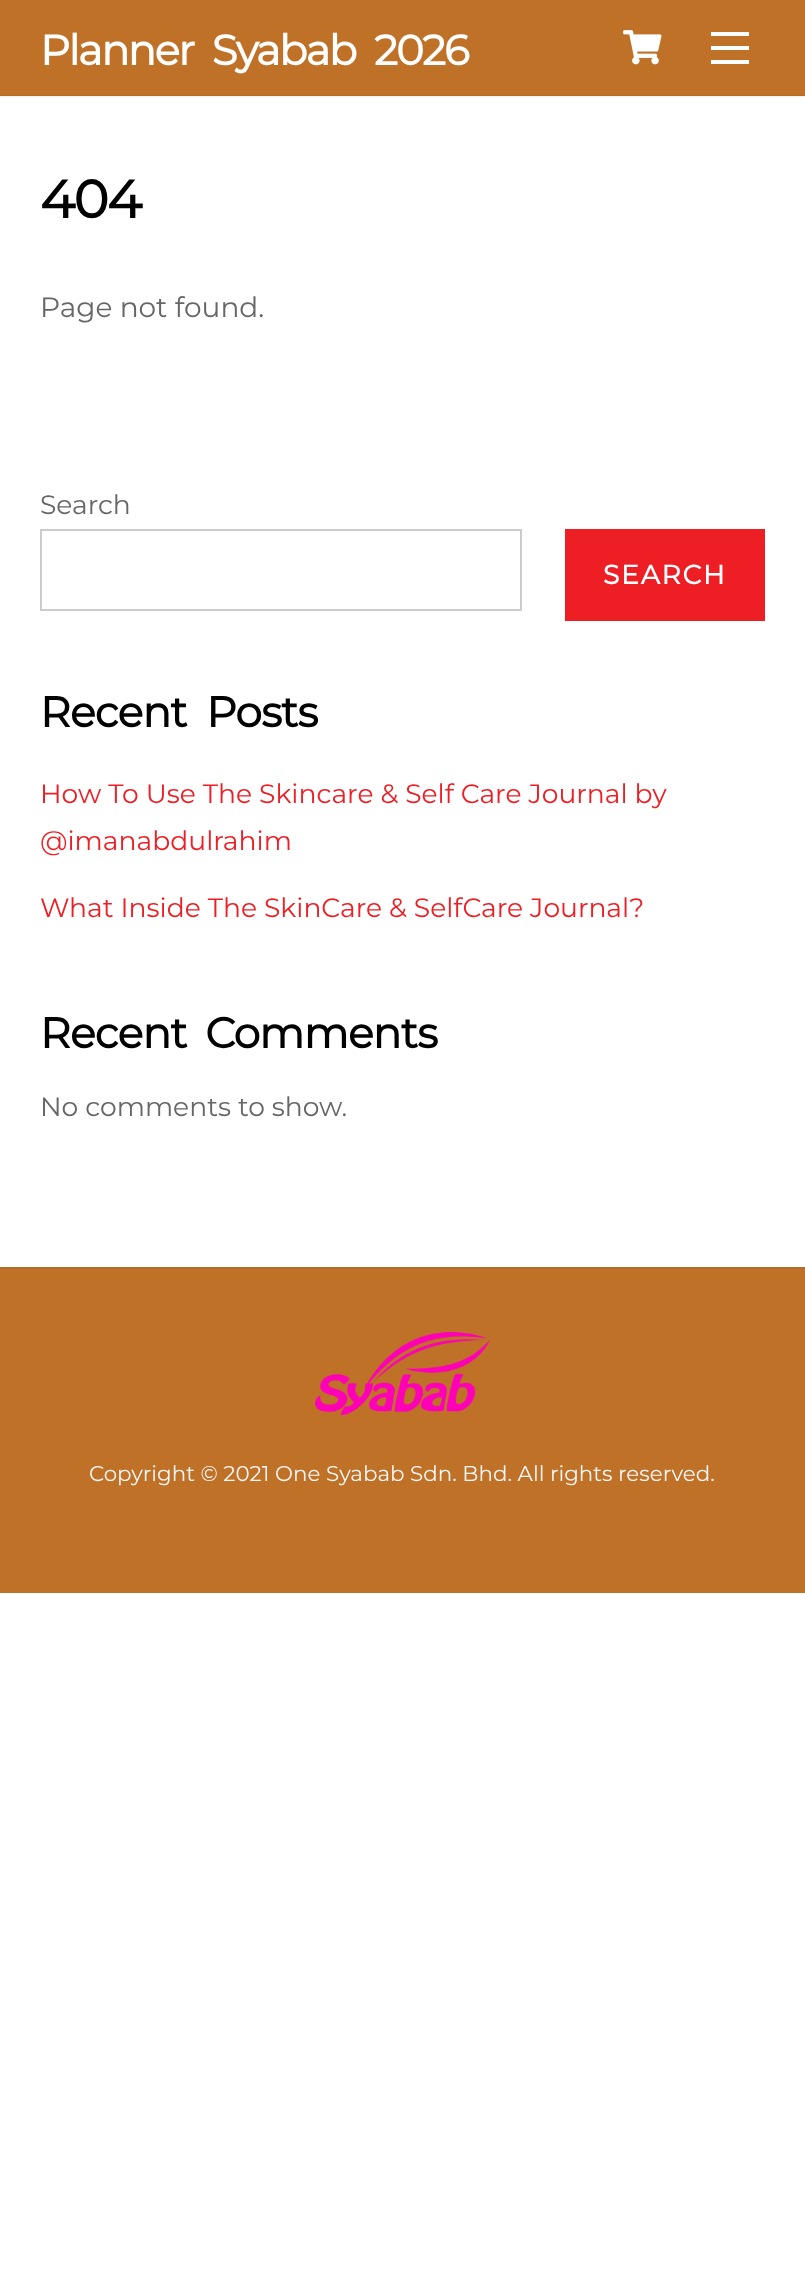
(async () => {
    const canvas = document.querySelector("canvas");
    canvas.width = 805;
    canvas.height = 2270;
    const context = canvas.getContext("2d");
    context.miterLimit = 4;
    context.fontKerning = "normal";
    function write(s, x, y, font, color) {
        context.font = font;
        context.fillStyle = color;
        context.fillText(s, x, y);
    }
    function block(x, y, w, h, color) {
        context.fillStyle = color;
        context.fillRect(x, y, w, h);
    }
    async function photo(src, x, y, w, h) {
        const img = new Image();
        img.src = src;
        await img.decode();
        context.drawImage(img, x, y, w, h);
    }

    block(0, 0, 805, 2270, "rgb(255, 255, 255)");
    block(0, 96, 805, 1, "rgb(242, 242, 242)");
    block(0, 0, 805, 95, "rgb(191, 113, 39)");
    block(0, 95, 805, 1, "rgb(181, 107, 37)");
    context.letterSpacing = "-1.7px";
    context.wordSpacing = "9px";
    write("Planner Syabab 2026", 40, 65, "bold 42px Montserrat", "rgb(255, 255, 255)");
    await photo("media/1.png", 623, 30, 39, 35);
    block(711, 60, 38, 4, "rgb(255, 255, 255)");
    block(711, 32, 38, 4, "rgb(255, 255, 255)");
    block(711, 46, 38, 4, "rgb(255, 255, 255)");
    context.letterSpacing = "-1.5px";
    context.wordSpacing = "0px";
    write("404", 40, 218, "bold 53px Montserrat", "rgb(0, 0, 0)");
    context.letterSpacing = "0px";
    write("Page not found.", 40, 317, "28px Montserrat", "rgb(102, 102, 102)");
    write("Search", 40, 514, "26.6px Montserrat", "rgb(102, 102, 102)");
    context.strokeStyle = "rgb(204, 204, 204)";
    context.lineWidth = 2;
    context.strokeRect(41, 530, 480, 80);
    block(565, 529, 200, 92, "rgb(237, 30, 36)");
    context.letterSpacing = "1.75px";
    write("SEARCH", 603, 584, "bold 26.6px Montserrat", "rgb(255, 255, 255)");
    context.letterSpacing = "-0.8px";
    context.wordSpacing = "9px";
    write("Recent Posts", 40, 727, "bold 42.5px Montserrat", "rgb(0, 0, 0)");
    context.letterSpacing = "0px";
    context.wordSpacing = "0px";
    write("How To Use The Skincare & Self Care Journal by", 40, 803, "26.6px Montserrat", "rgb(237, 30, 36)");
    write("@imanabdulrahim", 40, 850, "26.6px Montserrat", "rgb(237, 30, 36)");
    write("What Inside The SkinCare & SelfCare Journal?", 40, 917, "26.6px Montserrat", "rgb(237, 30, 36)");
    context.letterSpacing = "-0.8px";
    context.wordSpacing = "8px";
    write("Recent Comments", 40, 1048, "bold 42.5px Montserrat", "rgb(0, 0, 0)");
    context.letterSpacing = "0px";
    context.wordSpacing = "0px";
    write("No comments to show.", 40, 1116, "26.6px Montserrat", "rgb(102, 102, 102)");
    block(0, 1269, 805, 324, "rgb(191, 113, 39)");
    block(0, 1267, 805, 2, "rgb(181, 107, 37)");
    await photo("media/2.png", 315, 1332, 175, 83);
    write("Copyright © 2021 One Syabab Sdn. Bhd. All rights reserved.", 89, 1481, "21.4px Montserrat", "rgb(252, 247, 247)");
})();
